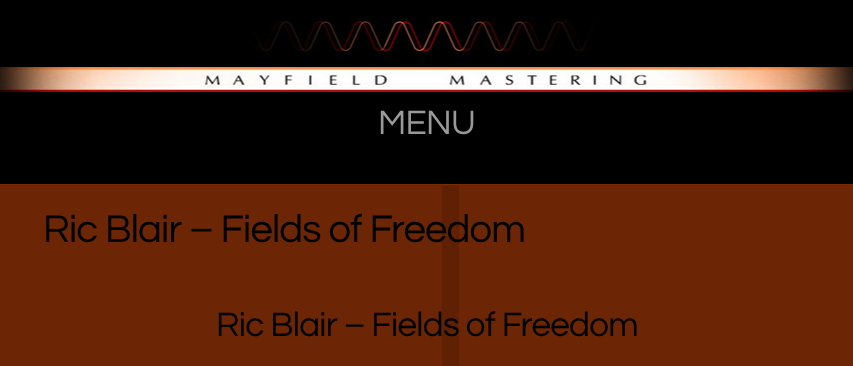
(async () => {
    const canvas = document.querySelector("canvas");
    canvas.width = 853;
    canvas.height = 366;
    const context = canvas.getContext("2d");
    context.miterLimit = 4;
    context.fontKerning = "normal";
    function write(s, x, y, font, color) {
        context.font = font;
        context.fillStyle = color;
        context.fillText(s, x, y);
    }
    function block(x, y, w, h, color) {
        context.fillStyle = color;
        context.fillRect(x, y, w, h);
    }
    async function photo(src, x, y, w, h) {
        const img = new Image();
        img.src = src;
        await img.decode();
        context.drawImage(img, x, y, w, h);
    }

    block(0, 0, 853, 366, "rgb(108, 37, 5)");
    block(442, 185, 17, 181, "rgb(95, 32, 4)");
    block(0, 0, 853, 184, "rgb(0, 0, 0)");
    await photo("media/1.png", 0, 18, 853, 74);
    context.letterSpacing = "-0.7px";
    write("MENU", 378, 134, "35px Questrial", "rgb(153, 153, 153)");
    block(0, 184, 853, 1, "rgb(124, 42, 6)");
    context.letterSpacing = "-0.8px";
    write("Ric Blair – Fields of Freedom", 43, 242, "40px Questrial", "rgb(0, 0, 0)");
    context.letterSpacing = "-0.7px";
    write("Ric Blair – Fields of Freedom", 216, 336, "35px Questrial", "rgb(0, 0, 0)");
})();
